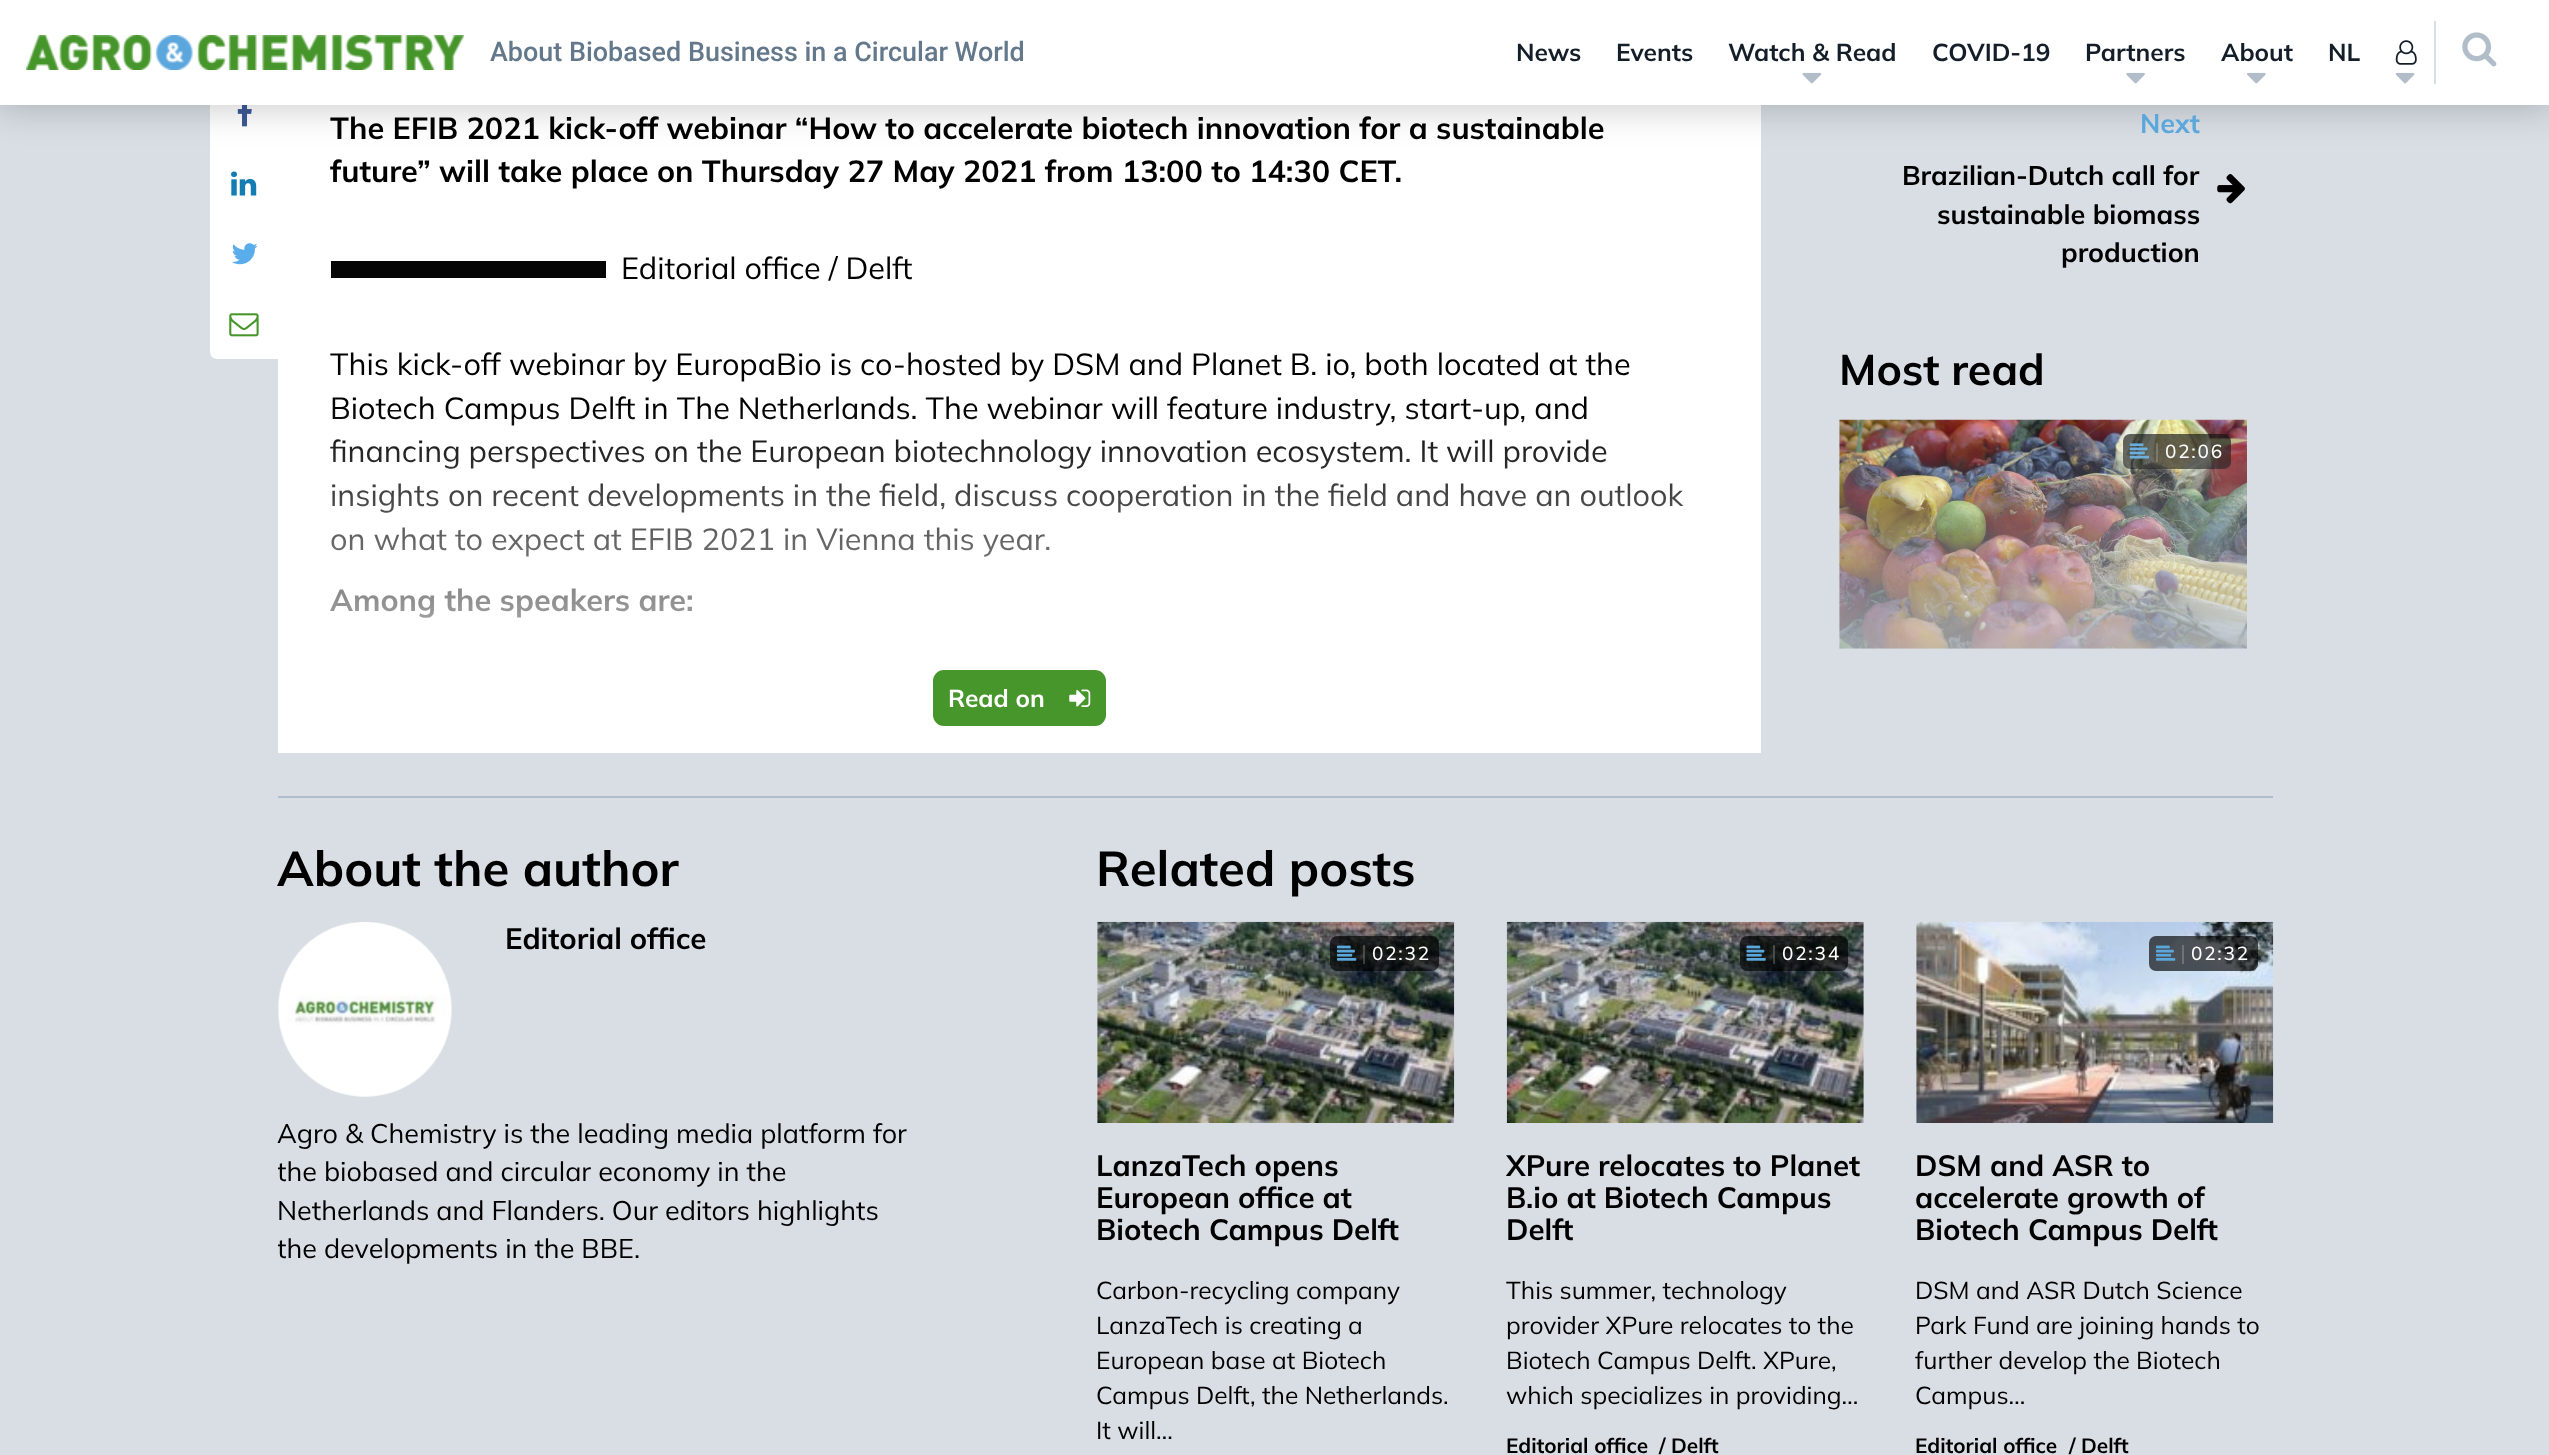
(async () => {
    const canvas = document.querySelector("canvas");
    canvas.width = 2549;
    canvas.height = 1455;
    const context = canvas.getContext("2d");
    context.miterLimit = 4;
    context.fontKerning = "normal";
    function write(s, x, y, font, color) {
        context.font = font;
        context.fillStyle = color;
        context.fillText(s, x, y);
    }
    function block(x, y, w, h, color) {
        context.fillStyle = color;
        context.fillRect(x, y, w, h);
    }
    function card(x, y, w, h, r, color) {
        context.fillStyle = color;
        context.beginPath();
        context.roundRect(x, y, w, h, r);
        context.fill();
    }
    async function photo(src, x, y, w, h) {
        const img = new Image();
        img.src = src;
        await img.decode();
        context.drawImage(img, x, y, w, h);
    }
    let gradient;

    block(0, 0, 2549, 1455, "rgb(216, 222, 228)");
    block(210, 105, 68, 184, "rgb(255, 255, 255)");
    await photo("media/8.png", 237, 105, 15, 22);
    block(278, 105, 1483, 646, "rgb(255, 255, 255)");
    context.fillStyle = "rgba(0, 0, 0, 0.2)";
    context.filter = "blur(17.5px)";
    context.beginPath();
    context.rect(-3, -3, 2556, 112);
    context.fill();
    context.filter = "none";
    block(0, 0, 2549, 105, "rgb(255, 255, 255)");
    await photo("media/1.png", 26, 35, 438, 35);
    write("About Biobased Business in a Circular World", 490, 61, "500 26.95px Roboto", "rgb(100, 120, 139)");
    write("News", 1516, 61, "bold 24.5px Mulish", "rgb(20, 30, 40)");
    write("Events", 1616, 61, "bold 24.5px Mulish", "rgb(20, 30, 40)");
    write("Watch & Read", 1728, 61, "bold 24.5px Mulish", "rgb(20, 30, 40)");
    await photo("media/2.png", 1802, 72, 20, 12);
    write("COVID-19", 1932, 61, "bold 24.5px Mulish", "rgb(20, 30, 40)");
    write("Partners", 2085, 61, "bold 24.5px Mulish", "rgb(20, 30, 40)");
    await photo("media/3.png", 2126, 72, 19, 12);
    write("About", 2221, 61, "bold 24.5px Mulish", "rgb(20, 30, 40)");
    await photo("media/4.png", 2247, 72, 19, 12);
    write("NL", 2328, 61, "bold 24.5px Mulish", "rgb(20, 30, 40)");
    block(2434, 21, 2, 63, "rgb(216, 222, 228)");
    await photo("media/5.png", 2395, 40, 22, 25);
    await photo("media/6.png", 2395, 72, 20, 12);
    await photo("media/7.png", 2462, 32, 35, 35);
    await photo("media/9.png", 231, 171, 26, 25);
    await photo("media/10.png", 232, 243, 26, 22);
    context.fillStyle = "rgb(255, 255, 255)";
    context.beginPath();
    context.roundRect(210, 289, 70, 70, [0, 0, 0, 7]);
    context.fill();
    await photo("media/11.png", 229, 313, 30, 24);
    write("The EFIB 2021 kick-off webinar “How to accelerate biotech innovation for a sustainable", 330, 139, "bold 30.6px Mulish", "rgb(0, 0, 0)");
    write("future” will take place on Thursday 27 May 2021 from 13:00 to 14:30 CET.", 330, 182, "bold 30.6px Mulish", "rgb(0, 0, 0)");
    block(331, 261, 275, 17, "rgb(5, 5, 5)");
    write("Editorial office / Delft", 621, 279, "30.6px Mulish", "rgb(0, 0, 0)");
    write("This kick-off webinar by EuropaBio is co-hosted by DSM and Planet B. io, both located at the", 330, 375, "30.6px Mulish", "rgb(0, 0, 0)");
    write("Biotech Campus Delft in The Netherlands. The webinar will feature industry, start-up, and", 330, 419, "30.6px Mulish", "rgb(0, 0, 0)");
    write("financing perspectives on the European biotechnology innovation ecosystem. It will provide", 330, 462, "30.6px Mulish", "rgb(0, 0, 0)");
    write("insights on recent developments in the field, discuss cooperation in the field and have an outlook", 330, 506, "30.6px Mulish", "rgb(0, 0, 0)");
    write("on what to expect at EFIB 2021 in Vienna this year.", 330, 550, "30.6px Mulish", "rgb(0, 0, 0)");
    write("Among the speakers are:", 330, 611, "bold 30.6px Mulish", "rgb(0, 0, 0)");
    write("Next", 2140, 133, "bold 26.95px Mulish", "rgb(91, 167, 220)");
    write("Brazilian-Dutch call for", 1902, 185, "bold 26.95px Mulish", "rgb(0, 0, 0)");
    write("sustainable biomass", 1937, 224, "bold 26.95px Mulish", "rgb(0, 0, 0)");
    write("production", 2061, 262, "bold 26.95px Mulish", "rgb(0, 0, 0)");
    await photo("media/12.png", 2217, 174, 28, 30);
    write("Most read", 1839, 385, "bold 43px Mulish", "rgb(0, 0, 0)");
    await photo("media/13.png", 1839, 419, 408, 230);
    card(2123, 434, 108, 35, 7, "rgba(0, 0, 0, 0.65)");
    block(2156, 443, 2, 19, "rgba(255, 255, 255, 0.2)");
    await photo("media/14.png", 2129, 443, 20, 16);
    context.letterSpacing = "1.75px";
    write("02:06", 2165, 458, "500 19px Mulish", "rgb(255, 255, 255)");
    gradient = context.createLinearGradient(2017, 403, 2017, 753);
    gradient.addColorStop(0, "rgba(216, 222, 228, 0)");
    gradient.addColorStop(1, "rgb(216, 222, 228)");
    context.fillStyle = gradient;
    context.fillRect(1839, 419, 408, 230);
    gradient = context.createLinearGradient(1019, 402, 1019, 753);
    gradient.addColorStop(0, "rgba(255, 255, 255, 0)");
    gradient.addColorStop(1, "rgb(255, 255, 255)");
    context.fillStyle = gradient;
    context.fillRect(278, 410, 1483, 343);
    card(933, 670, 173, 56, 11, "rgb(71, 150, 43)");
    context.letterSpacing = "0px";
    write("Read on", 948, 707, "bold 24.5px Mulish", "rgb(255, 255, 255)");
    await photo("media/15.png", 1069, 689, 22, 18);
    block(278, 796, 1995, 2, "rgb(177, 189, 201)");
    write("About the author", 277, 886, "bold 49px Mulish", "rgb(0, 0, 0)");
    await photo("media/16.png", 278, 922, 174, 175);
    write("Editorial office", 505, 949, "bold 29.4px Mulish", "rgb(0, 0, 0)");
    write("Agro & Chemistry is the leading media platform for", 277, 1143, "26.95px Mulish", "rgb(0, 0, 0)");
    context.save();
    context.beginPath();
    context.rect(278, 1115, 630, 154);
    context.clip();
    write("the biobased and circular economy in the", 277, 1181, "26.95px Mulish", "rgb(0, 0, 0)");
    context.restore();
    write("Netherlands and Flanders. Our editors highlights", 277, 1220, "26.95px Mulish", "rgb(0, 0, 0)");
    context.save();
    context.beginPath();
    context.rect(278, 1115, 630, 154);
    context.clip();
    write("the developments in the BBE.", 277, 1258, "26.95px Mulish", "rgb(0, 0, 0)");
    context.restore();
    write("Related posts", 1096, 886, "bold 49px Mulish", "rgb(0, 0, 0)");
    await photo("media/17.png", 1097, 921, 358, 202);
    card(1330, 936, 109, 35, 7, "rgba(0, 0, 0, 0.65)");
    block(1363, 945, 2, 19, "rgba(255, 255, 255, 0.2)");
    await photo("media/18.png", 1337, 945, 20, 16);
    context.letterSpacing = "1.75px";
    write("02:32", 1372, 960, "500 19px Mulish", "rgb(255, 255, 255)");
    context.letterSpacing = "0px";
    write("LanzaTech opens", 1096, 1176, "bold 29.4px Mulish", "rgb(0, 0, 0)");
    write("European office at", 1096, 1208, "bold 29.4px Mulish", "rgb(0, 0, 0)");
    write("Biotech Campus Delft", 1096, 1240, "bold 29.4px Mulish", "rgb(0, 0, 0)");
    write("Carbon-recycling company", 1096, 1299, "24.5px Mulish", "rgb(0, 0, 0)");
    write("LanzaTech is creating a", 1096, 1334, "24.5px Mulish", "rgb(0, 0, 0)");
    write("European base at Biotech", 1096, 1369, "24.5px Mulish", "rgb(0, 0, 0)");
    write("Campus Delft, the Netherlands.", 1096, 1404, "24.5px Mulish", "rgb(0, 0, 0)");
    write("It will…", 1096, 1439, "24.5px Mulish", "rgb(0, 0, 0)");
    await photo("media/19.png", 1506, 921, 358, 202);
    card(1740, 936, 108, 35, 7, "rgba(0, 0, 0, 0.65)");
    block(1773, 945, 2, 19, "rgba(255, 255, 255, 0.2)");
    await photo("media/20.png", 1746, 945, 20, 16);
    context.letterSpacing = "1.75px";
    write("02:34", 1782, 960, "500 19px Mulish", "rgb(255, 255, 255)");
    context.letterSpacing = "0px";
    write("XPure relocates to Planet", 1506, 1176, "bold 29.4px Mulish", "rgb(0, 0, 0)");
    write("B.io at Biotech Campus", 1506, 1208, "bold 29.4px Mulish", "rgb(0, 0, 0)");
    write("Delft", 1506, 1240, "bold 29.4px Mulish", "rgb(0, 0, 0)");
    write("This summer, technology", 1506, 1299, "24.5px Mulish", "rgb(0, 0, 0)");
    write("provider XPure relocates to the", 1506, 1334, "24.5px Mulish", "rgb(0, 0, 0)");
    write("Biotech Campus Delft. XPure,", 1506, 1369, "24.5px Mulish", "rgb(0, 0, 0)");
    write("which specializes in providing…", 1506, 1404, "24.5px Mulish", "rgb(0, 0, 0)");
    write("Editorial office", 1506, 1453, "bold 20.75px Mulish", "rgb(0, 0, 0)");
    write("/", 1659, 1453, "bold 20.75px Mulish", "rgb(0, 0, 0)");
    write("Delft", 1671, 1453, "bold 20.75px Mulish", "rgb(0, 0, 0)");
    await photo("media/21.png", 1916, 921, 358, 202);
    card(2149, 936, 109, 35, 7, "rgba(0, 0, 0, 0.65)");
    block(2182, 945, 2, 19, "rgb(111, 115, 120)");
    await photo("media/22.png", 2156, 945, 20, 16);
    context.letterSpacing = "1.75px";
    write("02:32", 2191, 960, "500 19px Mulish", "rgb(255, 255, 255)");
    context.letterSpacing = "0px";
    write("DSM and ASR to", 1915, 1176, "bold 29.4px Mulish", "rgb(0, 0, 0)");
    write("accelerate growth of", 1915, 1208, "bold 29.4px Mulish", "rgb(0, 0, 0)");
    write("Biotech Campus Delft", 1915, 1240, "bold 29.4px Mulish", "rgb(0, 0, 0)");
    write("DSM and ASR Dutch Science", 1915, 1299, "24.5px Mulish", "rgb(0, 0, 0)");
    write("Park Fund are joining hands to", 1915, 1334, "24.5px Mulish", "rgb(0, 0, 0)");
    write("further develop the Biotech", 1915, 1369, "24.5px Mulish", "rgb(0, 0, 0)");
    write("Campus…", 1915, 1404, "24.5px Mulish", "rgb(0, 0, 0)");
    write("Editorial office", 1915, 1453, "bold 20.75px Mulish", "rgb(0, 0, 0)");
    write("/", 2069, 1453, "bold 20.75px Mulish", "rgb(0, 0, 0)");
    write("Delft", 2081, 1453, "bold 20.75px Mulish", "rgb(0, 0, 0)");
})();
